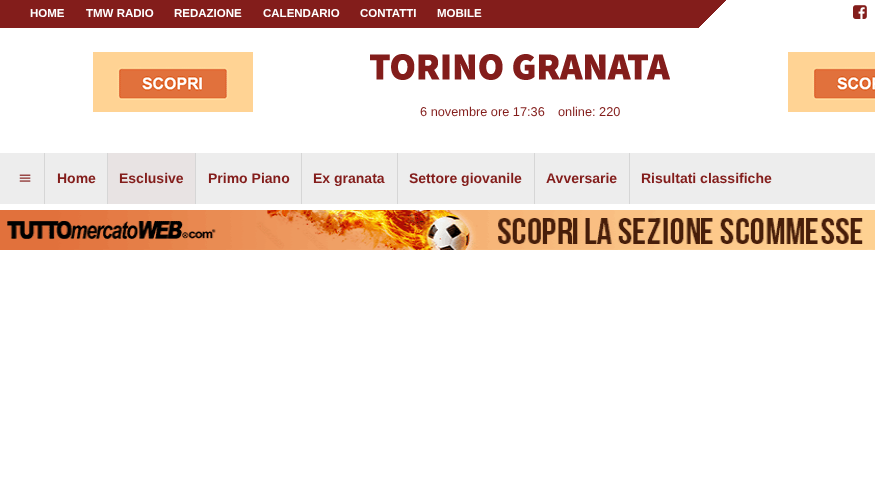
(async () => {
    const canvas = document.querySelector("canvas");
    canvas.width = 875;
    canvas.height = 477;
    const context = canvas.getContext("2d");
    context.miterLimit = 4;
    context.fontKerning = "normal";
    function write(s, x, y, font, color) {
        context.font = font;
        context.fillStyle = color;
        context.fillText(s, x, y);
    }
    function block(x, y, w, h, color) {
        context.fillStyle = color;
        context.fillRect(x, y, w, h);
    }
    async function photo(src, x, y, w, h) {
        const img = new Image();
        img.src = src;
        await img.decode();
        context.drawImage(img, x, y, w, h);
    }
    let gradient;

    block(0, 0, 875, 477, "rgb(255, 255, 255)");
    gradient = context.createLinearGradient(253, -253, 787, 281);
    gradient.addColorStop(0.68, "rgb(131, 29, 27)");
    gradient.addColorStop(0.68, "rgb(255, 255, 255)");
    gradient.addColorStop(1, "rgb(255, 255, 255)");
    context.fillStyle = gradient;
    context.fillRect(0, 0, 726, 28);
    write("HOME", 30, 17, "bold 11.5px Liberation Sans", "rgb(255, 255, 255)");
    write("TMW RADIO", 86, 17, "bold 11.5px Liberation Sans", "rgb(255, 255, 255)");
    write("REDAZIONE", 174, 17, "bold 11.5px Liberation Sans", "rgb(255, 255, 255)");
    write("CALENDARIO", 263, 17, "bold 11.5px Liberation Sans", "rgb(255, 255, 255)");
    write("CONTATTI", 360, 17, "bold 11.5px Liberation Sans", "rgb(255, 255, 255)");
    write("MOBILE", 437, 17, "bold 11.5px Liberation Sans", "rgb(255, 255, 255)");
    await photo("media/1.png", 853, 5, 14, 14);
    await photo("media/2.png", 93, 52, 160, 60);
    await photo("media/3.png", 370, 54, 300, 26);
    write("6 novembre ore 17:36", 420, 116, "12.75px Liberation Sans", "rgb(131, 29, 27)");
    write("online: 220", 558, 116, "12.75px Liberation Sans", "rgb(131, 29, 27)");
    await photo("media/4.png", 788, 52, 87, 60);
    block(0, 153, 875, 51, "rgb(237, 237, 237)");
    await photo("media/5.png", 19, 174, 12, 8);
    block(44, 153, 1, 51, "rgb(214, 214, 214)");
    write("Home", 57, 183, "bold 14px Liberation Sans", "rgb(131, 29, 27)");
    block(108, 153, 87, 51, "rgb(232, 227, 227)");
    block(107, 153, 1, 51, "rgb(214, 214, 214)");
    write("Esclusive", 119, 183, "bold 14px Liberation Sans", "rgb(131, 29, 27)");
    block(195, 153, 1, 51, "rgb(214, 214, 214)");
    write("Primo Piano", 208, 183, "bold 14px Liberation Sans", "rgb(131, 29, 27)");
    block(301, 153, 1, 51, "rgb(214, 214, 214)");
    write("Ex granata", 313, 183, "bold 14px Liberation Sans", "rgb(131, 29, 27)");
    block(397, 153, 1, 51, "rgb(214, 214, 214)");
    write("Settore giovanile", 409, 183, "bold 14px Liberation Sans", "rgb(131, 29, 27)");
    block(534, 153, 1, 51, "rgb(214, 214, 214)");
    write("Avversarie", 546, 183, "bold 14px Liberation Sans", "rgb(131, 29, 27)");
    block(629, 153, 1, 51, "rgb(214, 214, 214)");
    write("Risultati classifiche", 641, 183, "bold 14px Liberation Sans", "rgb(131, 29, 27)");
    await photo("media/6.png", 0, 210, 875, 40);
})();
